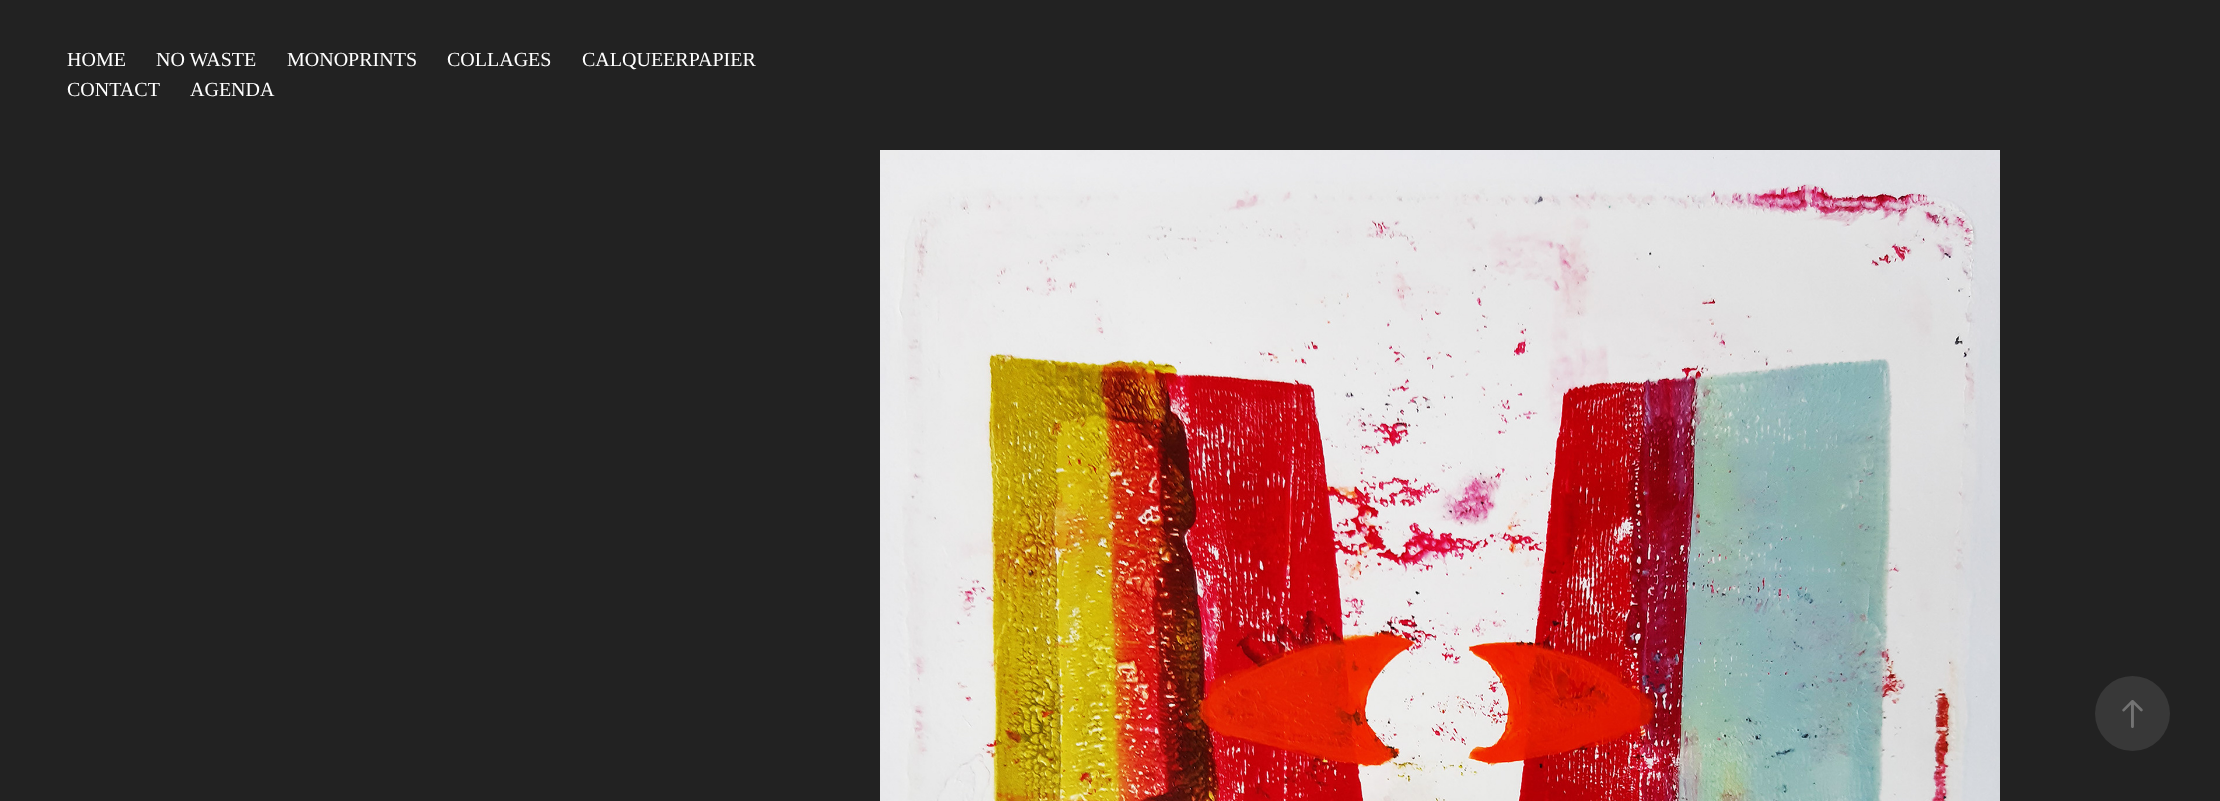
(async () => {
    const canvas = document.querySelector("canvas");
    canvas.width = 2220;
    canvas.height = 801;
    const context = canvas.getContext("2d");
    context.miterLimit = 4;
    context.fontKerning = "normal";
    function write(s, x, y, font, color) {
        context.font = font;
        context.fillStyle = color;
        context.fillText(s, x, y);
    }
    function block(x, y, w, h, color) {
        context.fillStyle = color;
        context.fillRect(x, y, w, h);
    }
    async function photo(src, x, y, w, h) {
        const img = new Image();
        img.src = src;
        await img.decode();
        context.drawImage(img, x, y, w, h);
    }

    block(0, 0, 2220, 801, "rgb(34, 34, 34)");
    write("HOME", 67, 66, "20px Liberation Serif", "rgb(255, 255, 255)");
    write("NO WASTE", 156, 66, "20px Liberation Serif", "rgb(255, 255, 255)");
    write("MONOPRINTS", 287, 66, "20px Liberation Serif", "rgb(255, 255, 255)");
    write("COLLAGES", 447, 66, "20px Liberation Serif", "rgb(255, 255, 255)");
    write("CALQUEERPAPIER", 582, 66, "20px Liberation Serif", "rgb(255, 255, 255)");
    write("CONTACT", 67, 96, "20px Liberation Serif", "rgb(255, 255, 255)");
    write("AGENDA", 190, 96, "20px Liberation Serif", "rgb(255, 255, 255)");
    await photo("media/1.png", 880, 150, 1120, 651);
    context.fillStyle = "rgb(56, 56, 56)";
    context.beginPath();
    context.arc(2132.5, 713.5, 37.5, 0, Math.PI * 2);
    context.fill();
    await photo("media/2.png", 2122, 700, 21, 28);
})();
